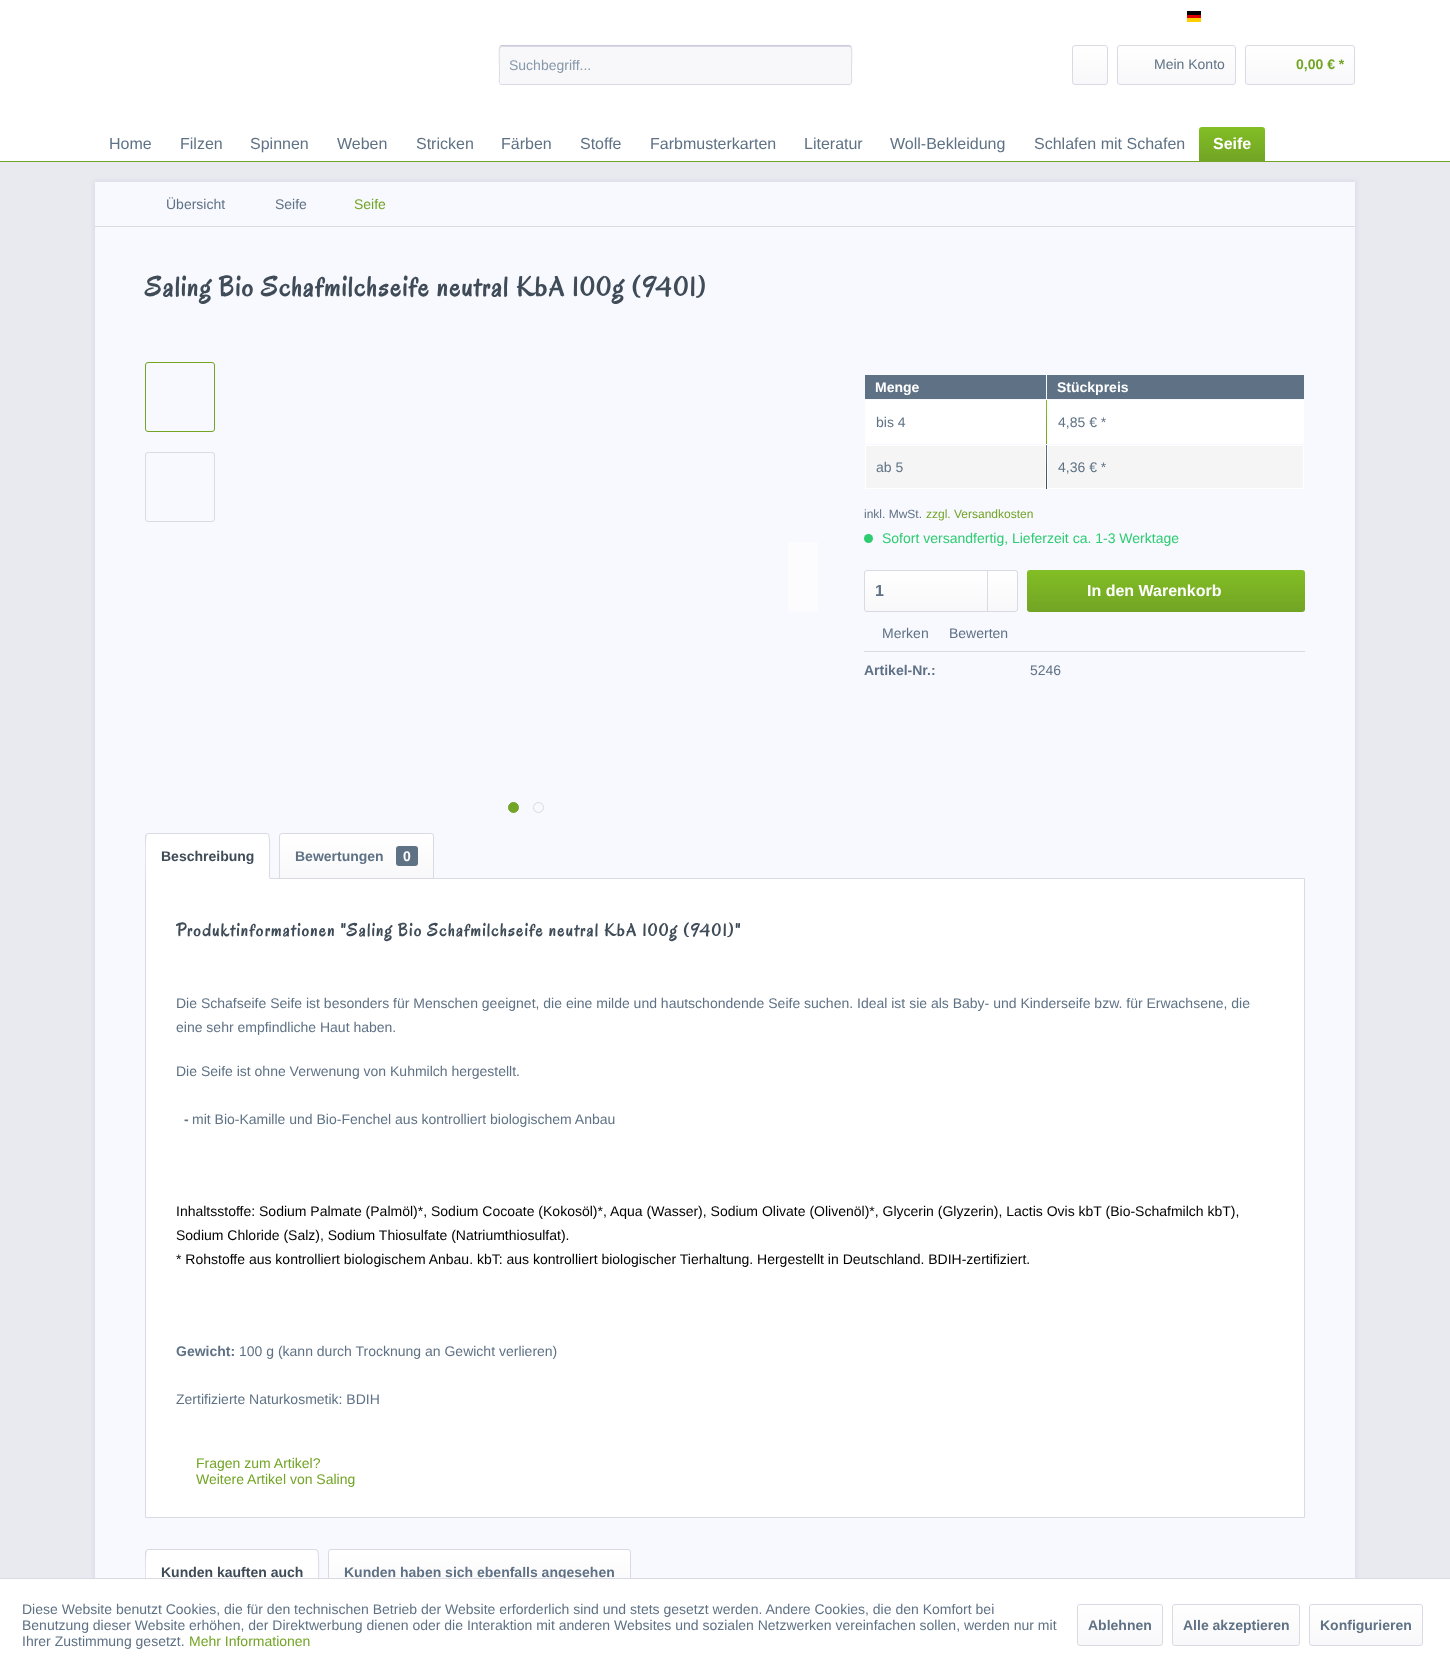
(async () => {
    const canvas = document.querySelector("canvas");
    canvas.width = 1450;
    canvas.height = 1671;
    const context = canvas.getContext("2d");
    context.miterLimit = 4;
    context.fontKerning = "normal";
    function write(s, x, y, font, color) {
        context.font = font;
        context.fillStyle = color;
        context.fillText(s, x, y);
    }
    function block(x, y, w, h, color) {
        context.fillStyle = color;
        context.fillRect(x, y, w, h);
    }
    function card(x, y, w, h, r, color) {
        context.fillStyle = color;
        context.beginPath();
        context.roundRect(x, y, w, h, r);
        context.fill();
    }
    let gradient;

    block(0, 0, 1450, 1671, "rgb(233, 233, 240)");
    block(0, 0, 1450, 161, "rgb(255, 255, 255)");
    block(1187, 11, 14, 4, "rgb(0, 0, 0)");
    block(1187, 15, 14, 3, "rgb(221, 0, 0)");
    block(1187, 18, 14, 4, "rgb(255, 206, 0)");
    card(499, 45, 353, 40, 3, "rgb(248, 248, 250)");
    context.fillStyle = "rgb(218, 218, 229)";
    context.beginPath();
    context.moveTo(502, 47);
    context.lineTo(849, 47);
    context.bezierCurveTo(850, 47, 851, 48, 851, 49);
    context.bezierCurveTo(851, 48, 851, 46, 849, 46);
    context.lineTo(502, 46);
    context.bezierCurveTo(500, 46, 500, 48, 500, 49);
    context.bezierCurveTo(500, 48, 501, 47, 502, 47);
    context.closePath();
    context.fill();
    context.beginPath();
    context.moveTo(500, 46);
    context.lineTo(502, 45.5);
    context.lineTo(849, 45.5);
    context.lineTo(851, 46);
    context.strokeStyle = "rgb(203, 203, 219)";
    context.stroke();
    context.beginPath();
    context.moveTo(851, 46);
    context.bezierCurveTo(852.5, 48, 851.5, 67, 851.5, 70.5);
    context.lineTo(851.5, 76.5);
    context.bezierCurveTo(851.5, 78, 853, 84.5, 849, 84.5);
    context.lineTo(502, 84.5);
    context.bezierCurveTo(498, 84.5, 499.5, 78, 499.5, 76.5);
    context.lineTo(499.5, 70.5);
    context.bezierCurveTo(499.5, 67, 498.5, 48, 500, 46);
    context.strokeStyle = "rgb(218, 218, 229)";
    context.stroke();
    write("Suchbegriff...", 509, 70, "14px Liberation Sans", "rgb(135, 152, 169)");
    gradient = context.createLinearGradient(1090, 46, 1090, 84);
    gradient.addColorStop(0, "rgb(255, 255, 255)");
    gradient.addColorStop(1, "rgb(248, 248, 250)");
    context.fillStyle = gradient;
    context.beginPath();
    context.roundRect(1073, 46, 34, 38, 2);
    context.fill();
    context.beginPath();
    context.roundRect(1072.5, 45.5, 35, 39, 2.5);
    context.stroke();
    gradient = context.createLinearGradient(1177, 46, 1177, 84);
    gradient.addColorStop(0, "rgb(255, 255, 255)");
    gradient.addColorStop(1, "rgb(248, 248, 250)");
    context.fillStyle = gradient;
    context.beginPath();
    context.roundRect(1118, 46, 117, 38, 2);
    context.fill();
    context.beginPath();
    context.roundRect(1117.5, 45.5, 118, 39, 2.5);
    context.stroke();
    write("Mein Konto", 1154, 69, "14px Liberation Sans", "rgb(95, 114, 133)");
    gradient = context.createLinearGradient(1300, 46, 1300, 84);
    gradient.addColorStop(0, "rgb(255, 255, 255)");
    gradient.addColorStop(1, "rgb(248, 248, 250)");
    context.fillStyle = gradient;
    context.beginPath();
    context.roundRect(1246, 46, 108, 38, 2);
    context.fill();
    context.beginPath();
    context.roundRect(1245.5, 45.5, 109, 39, 2.5);
    context.stroke();
    write("0,00 € *", 1296, 69, "bold 14px Liberation Sans", "rgb(114, 164, 37)");
    block(0, 161, 1450, 1, "rgb(114, 164, 37)");
    write("Home", 109, 149, "16px Liberation Sans", "rgb(95, 114, 133)");
    write("Filzen", 180, 149, "16px Liberation Sans", "rgb(95, 114, 133)");
    write("Spinnen", 250, 149, "16px Liberation Sans", "rgb(95, 114, 133)");
    write("Weben", 337, 149, "16px Liberation Sans", "rgb(95, 114, 133)");
    write("Stricken", 416, 149, "16px Liberation Sans", "rgb(95, 114, 133)");
    write("Färben", 501, 149, "16px Liberation Sans", "rgb(95, 114, 133)");
    write("Stoffe", 580, 149, "16px Liberation Sans", "rgb(95, 114, 133)");
    write("Farbmusterkarten", 650, 149, "16px Liberation Sans", "rgb(95, 114, 133)");
    write("Literatur", 804, 149, "16px Liberation Sans", "rgb(95, 114, 133)");
    write("Woll-Bekleidung", 890, 149, "16px Liberation Sans", "rgb(95, 114, 133)");
    write("Schlafen mit Schafen", 1034, 149, "16px Liberation Sans", "rgb(95, 114, 133)");
    gradient = context.createLinearGradient(1232, 127, 1232, 161);
    gradient.addColorStop(0, "rgb(130, 190, 36)");
    gradient.addColorStop(1, "rgb(114, 164, 37)");
    context.fillStyle = gradient;
    context.beginPath();
    context.roundRect(1199, 127, 66, 34, [3, 3, 0, 0]);
    context.fill();
    write("Seife", 1213, 149, "bold 16px Liberation Sans", "rgb(255, 255, 255)");
    context.fillStyle = "rgb(218, 218, 229)";
    context.filter = "blur(2px)";
    context.beginPath();
    context.rect(94, 181, 1262, 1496);
    context.fill();
    context.filter = "none";
    block(95, 182, 1260, 1396, "rgb(248, 248, 255)");
    block(95, 226, 1260, 1, "rgb(218, 218, 229)");
    write("Übersicht", 166, 209, "14px Liberation Sans", "rgb(95, 114, 133)");
    write("Seife", 275, 209, "14px Liberation Sans", "rgb(95, 114, 133)");
    write("Seife", 354, 209, "14px Liberation Sans", "rgb(114, 164, 37)");
    context.letterSpacing = "1.5px";
    write("Saling Bio Schafmilchseife neutral KbA 100g (9401)", 145, 296, "bold 28px Oregano", "rgb(63, 76, 88)");
    context.beginPath();
    context.roundRect(145.5, 362.5, 69, 69, 2.5);
    context.strokeStyle = "rgb(114, 164, 37)";
    context.stroke();
    context.beginPath();
    context.roundRect(145.5, 452.5, 69, 69, 2.5);
    context.strokeStyle = "rgb(218, 218, 229)";
    context.stroke();
    context.fillStyle = "rgb(252, 252, 255)";
    context.beginPath();
    context.roundRect(788.5, 542.5, 29, 69, [2.5, 0, 0, 2.5]);
    context.fill();
    context.strokeStyle = "rgb(252, 252, 255)";
    context.stroke();
    context.fillStyle = "rgb(114, 164, 37)";
    context.beginPath();
    context.arc(513.5, 807.5, 5, 0, Math.PI * 2);
    context.fill();
    context.strokeStyle = "rgb(114, 164, 37)";
    context.stroke();
    context.beginPath();
    context.arc(538.5, 807.5, 5, 0, Math.PI * 2);
    context.strokeStyle = "rgb(218, 218, 229)";
    context.stroke();
    block(865, 375, 181, 24, "rgb(95, 114, 133)");
    context.letterSpacing = "0px";
    write("Menge", 875, 392, "bold 14px Liberation Sans", "rgb(255, 255, 255)");
    block(1047, 375, 257, 24, "rgb(95, 114, 133)");
    write("Stückpreis", 1057, 392, "bold 14px Liberation Sans", "rgb(255, 255, 255)");
    gradient = context.createLinearGradient(1085, 400, 1085, 444);
    gradient.addColorStop(0, "rgb(130, 190, 36)");
    gradient.addColorStop(1, "rgb(114, 164, 37)");
    context.fillStyle = gradient;
    context.fillRect(1046, 400, 1, 44);
    block(865, 400, 181, 44, "rgb(255, 255, 255)");
    write("bis 4", 876, 427, "14px Liberation Sans", "rgb(95, 114, 133)");
    block(1047, 400, 257, 44, "rgb(255, 255, 255)");
    write("4,85 € *", 1058, 427, "14px Liberation Sans", "rgb(95, 114, 133)");
    gradient = context.createLinearGradient(1085, 445, 1085, 489);
    gradient.addColorStop(0, "rgb(95, 114, 133)");
    gradient.addColorStop(1, "rgb(63, 76, 88)");
    context.fillStyle = gradient;
    context.fillRect(1046, 445, 1, 44);
    context.fillStyle = "rgb(245, 245, 245)";
    context.beginPath();
    context.rect(865.5, 445.5, 180, 43);
    context.fill();
    context.strokeStyle = "rgb(255, 255, 255)";
    context.stroke();
    write("ab 5", 876, 472, "14px Liberation Sans", "rgb(95, 114, 133)");
    context.fillStyle = "rgb(245, 245, 245)";
    context.beginPath();
    context.rect(1047.5, 445.5, 256, 43);
    context.fill();
    context.stroke();
    write("4,36 € *", 1058, 472, "14px Liberation Sans", "rgb(95, 114, 133)");
    write("inkl. MwSt.", 864, 518, "12px Liberation Sans", "rgb(95, 114, 133)");
    write("zzgl. Versandkosten", 926, 518, "12px Liberation Sans", "rgb(114, 164, 37)");
    context.fillStyle = "rgb(46, 204, 113)";
    context.beginPath();
    context.arc(868.5, 538.5, 4.5, 0, Math.PI * 2);
    context.fill();
    write("Sofort versandfertig, Lieferzeit ca. 1-3 Werktage", 882, 543, "14px Liberation Sans", "rgb(46, 204, 113)");
    gradient = context.createLinearGradient(941, 571, 941, 611);
    gradient.addColorStop(0, "rgb(255, 255, 255)");
    gradient.addColorStop(1, "rgb(248, 248, 250)");
    context.fillStyle = gradient;
    context.beginPath();
    context.roundRect(865, 571, 152, 40, 2);
    context.fill();
    context.beginPath();
    context.roundRect(864.5, 570.5, 153, 41, 2.5);
    context.strokeStyle = "rgb(218, 218, 229)";
    context.stroke();
    write("1", 875, 596, "bold 16px Liberation Sans", "rgb(95, 114, 133)");
    block(987, 571, 1, 40, "rgb(218, 218, 229)");
    gradient = context.createLinearGradient(1166, 570, 1166, 612);
    gradient.addColorStop(0, "rgb(130, 190, 36)");
    gradient.addColorStop(1, "rgb(114, 164, 37)");
    context.fillStyle = gradient;
    context.beginPath();
    context.roundRect(1027, 570, 278, 42, 3);
    context.fill();
    write("In den Warenkorb", 1087, 596, "bold 16px Liberation Sans", "rgb(255, 255, 255)");
    block(864, 651, 441, 1, "rgb(218, 218, 229)");
    write("Merken", 882, 638, "14px Liberation Sans", "rgb(95, 114, 133)");
    write("Bewerten", 949, 638, "14px Liberation Sans", "rgb(95, 114, 133)");
    write("Artikel-Nr.:", 864, 675, "bold 14px Liberation Sans", "rgb(95, 114, 133)");
    write("5246", 1030, 675, "14px Liberation Sans", "rgb(95, 114, 133)");
    context.fillStyle = "rgb(255, 255, 255)";
    context.beginPath();
    context.rect(145.5, 878.5, 1159, 639);
    context.fill();
    context.stroke();
    context.beginPath();
    context.roundRect(145, 833, 125, 46, [3, 3, 0, 0]);
    context.fill();
    context.fillStyle = "rgb(218, 218, 229)";
    context.beginPath();
    context.moveTo(148, 833);
    context.lineTo(146, 834);
    context.lineTo(147, 835);
    context.lineTo(148, 834);
    context.lineTo(267, 834);
    context.lineTo(268, 835);
    context.lineTo(269, 834);
    context.lineTo(267, 833);
    context.closePath();
    context.fill();
    context.beginPath();
    context.moveTo(270, 879);
    context.bezierCurveTo(270, 874, 271, 836, 269, 834);
    context.lineTo(268, 835);
    context.bezierCurveTo(270, 836, 269, 873, 269, 878);
    context.closePath();
    context.fill();
    context.fillStyle = "rgb(255, 255, 255)";
    context.beginPath();
    context.moveTo(270, 879);
    context.lineTo(269, 878);
    context.lineTo(146, 878);
    context.lineTo(145, 879);
    context.closePath();
    context.fill();
    context.fillStyle = "rgb(218, 218, 229)";
    context.beginPath();
    context.moveTo(145, 879);
    context.lineTo(146, 878);
    context.bezierCurveTo(146, 873, 145, 836, 147, 835);
    context.lineTo(146, 834);
    context.lineTo(145, 836);
    context.closePath();
    context.fill();
    write("Beschreibung", 161, 861, "bold 14px Liberation Sans", "rgb(63, 76, 88)");
    gradient = context.createLinearGradient(357, 834, 357, 878);
    gradient.addColorStop(0, "rgb(255, 255, 255)");
    gradient.addColorStop(1, "rgb(248, 248, 250)");
    context.fillStyle = gradient;
    context.beginPath();
    context.roundRect(280, 834, 153, 44, [2, 2, 0, 0]);
    context.fill();
    context.beginPath();
    context.roundRect(279.5, 833.5, 154, 45, [2.5, 2.5, 0, 0]);
    context.stroke();
    write("Bewertungen", 295, 861, "bold 14px Liberation Sans", "rgb(95, 114, 133)");
    card(396, 846, 22, 20, 3, "rgb(95, 114, 133)");
    write("0", 403, 861, "bold 14px Liberation Sans", "rgb(255, 255, 255)");
    context.letterSpacing = "1.5px";
    write("Produktinformationen \"Saling Bio Schafmilchseife neutral KbA 100g (9401)\"", 176, 936, "bold 18px Oregano", "rgb(63, 76, 88)");
    context.letterSpacing = "0px";
    write("Die Schafseife Seife ist besonders für Menschen geeignet, die eine milde und hautschondende Seife suchen. Ideal ist sie als Baby- und Kinderseife bzw. für Erwachsene, die", 176, 1008, "14px Liberation Sans", "rgb(95, 114, 133)");
    write("eine sehr empfindliche Haut haben.", 176, 1032, "14px Liberation Sans", "rgb(95, 114, 133)");
    write("Die Seife ist ohne Verwenung von Kuhmilch hergestellt.", 176, 1076, "14px Liberation Sans", "rgb(95, 114, 133)");
    write("-", 184, 1124, "bold 14px Liberation Sans", "rgb(95, 114, 133)");
    write("mit Bio-Kamille und Bio-Fenchel aus kontrolliert biologischem Anbau", 192, 1124, "14px Liberation Sans", "rgb(95, 114, 133)");
    write("Inhaltsstoffe: Sodium Palmate (Palmöl)*, Sodium Cocoate (Kokosöl)*, Aqua (Wasser), Sodium Olivate (Olivenöl)*, Glycerin (Glyzerin), Lactis Ovis kbT (Bio-Schafmilch kbT),", 176, 1216, "14px Liberation Sans", "rgb(0, 0, 0)");
    write("Sodium Chloride (Salz), Sodium Thiosulfate (Natriumthiosulfat).", 176, 1240, "14px Liberation Sans", "rgb(0, 0, 0)");
    write("* Rohstoffe aus kontrolliert biologischem Anbau. kbT: aus kontrolliert biologischer Tierhaltung. Hergestellt in Deutschland. BDIH-zertifiziert.", 176, 1264, "14px Liberation Sans", "rgb(0, 0, 0)");
    write("Gewicht:", 176, 1356, "bold 14px Liberation Sans", "rgb(95, 114, 133)");
    write("100 g (kann durch Trocknung an Gewicht verlieren)", 239, 1356, "14px Liberation Sans", "rgb(95, 114, 133)");
    write("Zertifizierte Naturkosmetik: BDIH", 176, 1404, "14px Liberation Sans", "rgb(95, 114, 133)");
    write("Fragen zum Artikel?", 196, 1468, "14px Liberation Sans", "rgb(114, 164, 37)");
    write("Weitere Artikel von Saling", 196, 1484, "14px Liberation Sans", "rgb(114, 164, 37)");
    context.fillStyle = "rgb(255, 255, 255)";
    context.beginPath();
    context.roundRect(145, 1549, 174, 46, [3, 3, 0, 0]);
    context.fill();
    context.fillStyle = "rgb(218, 218, 229)";
    context.beginPath();
    context.moveTo(148, 1549);
    context.lineTo(146, 1550);
    context.lineTo(147, 1551);
    context.lineTo(148, 1550);
    context.lineTo(316, 1550);
    context.lineTo(317, 1551);
    context.lineTo(318, 1550);
    context.lineTo(316, 1549);
    context.closePath();
    context.fill();
    context.beginPath();
    context.moveTo(319, 1595);
    context.bezierCurveTo(319, 1590, 320, 1552, 318, 1550);
    context.lineTo(317, 1551);
    context.bezierCurveTo(319, 1552, 318, 1589, 318, 1594);
    context.closePath();
    context.fill();
    context.beginPath();
    context.moveTo(145, 1595);
    context.lineTo(146, 1594);
    context.bezierCurveTo(146, 1589, 145, 1552, 147, 1551);
    context.lineTo(146, 1550);
    context.lineTo(145, 1552);
    context.closePath();
    context.fill();
    write("Kunden kauften auch", 161, 1577, "bold 14px Liberation Sans", "rgb(63, 76, 88)");
    gradient = context.createLinearGradient(480, 1550, 480, 1594);
    gradient.addColorStop(0, "rgb(255, 255, 255)");
    gradient.addColorStop(1, "rgb(248, 248, 250)");
    context.fillStyle = gradient;
    context.beginPath();
    context.roundRect(329, 1550, 301, 44, [2, 2, 0, 0]);
    context.fill();
    context.beginPath();
    context.roundRect(328.5, 1549.5, 302, 45, [2.5, 2.5, 0, 0]);
    context.stroke();
    write("Kunden haben sich ebenfalls angesehen", 344, 1577, "bold 14px Liberation Sans", "rgb(95, 114, 133)");
    block(0, 1579, 1450, 92, "rgb(255, 255, 255)");
    block(0, 1578, 1450, 1, "rgb(218, 218, 229)");
    write("Diese Website benutzt Cookies, die für den technischen Betrieb der Website erforderlich sind und stets gesetzt werden. Andere Cookies, die den Komfort bei", 22, 1614, "14px Liberation Sans", "rgb(95, 114, 133)");
    write("Benutzung dieser Website erhöhen, der Direktwerbung dienen oder die Interaktion mit anderen Websites und sozialen Netzwerken vereinfachen sollen, werden nur mit", 22, 1630, "14px Liberation Sans", "rgb(95, 114, 133)");
    write("Ihrer Zustimmung gesetzt.", 22, 1646, "14px Liberation Sans", "rgb(95, 114, 133)");
    write("Mehr Informationen", 189, 1646, "14px Liberation Sans", "rgb(114, 164, 37)");
    gradient = context.createLinearGradient(1120, 1605, 1120, 1645);
    gradient.addColorStop(0, "rgb(255, 255, 255)");
    gradient.addColorStop(1, "rgb(248, 248, 250)");
    context.fillStyle = gradient;
    context.beginPath();
    context.roundRect(1078, 1605, 84, 40, 2);
    context.fill();
    context.beginPath();
    context.roundRect(1077.5, 1604.5, 85, 41, 2.5);
    context.stroke();
    write("Ablehnen", 1088, 1630, "bold 14px Liberation Sans", "rgb(95, 114, 133)");
    gradient = context.createLinearGradient(1236, 1605, 1236, 1645);
    gradient.addColorStop(0, "rgb(255, 255, 255)");
    gradient.addColorStop(1, "rgb(248, 248, 250)");
    context.fillStyle = gradient;
    context.beginPath();
    context.roundRect(1173, 1605, 126, 40, 2);
    context.fill();
    context.beginPath();
    context.roundRect(1172.5, 1604.5, 127, 41, 2.5);
    context.stroke();
    write("Alle akzeptieren", 1183, 1630, "bold 14px Liberation Sans", "rgb(95, 114, 133)");
    gradient = context.createLinearGradient(1366, 1605, 1366, 1645);
    gradient.addColorStop(0, "rgb(255, 255, 255)");
    gradient.addColorStop(1, "rgb(248, 248, 250)");
    context.fillStyle = gradient;
    context.beginPath();
    context.roundRect(1310, 1605, 112, 40, 2);
    context.fill();
    context.beginPath();
    context.roundRect(1309.5, 1604.5, 113, 41, 2.5);
    context.stroke();
    write("Konfigurieren", 1320, 1630, "bold 14px Liberation Sans", "rgb(95, 114, 133)");
})();
